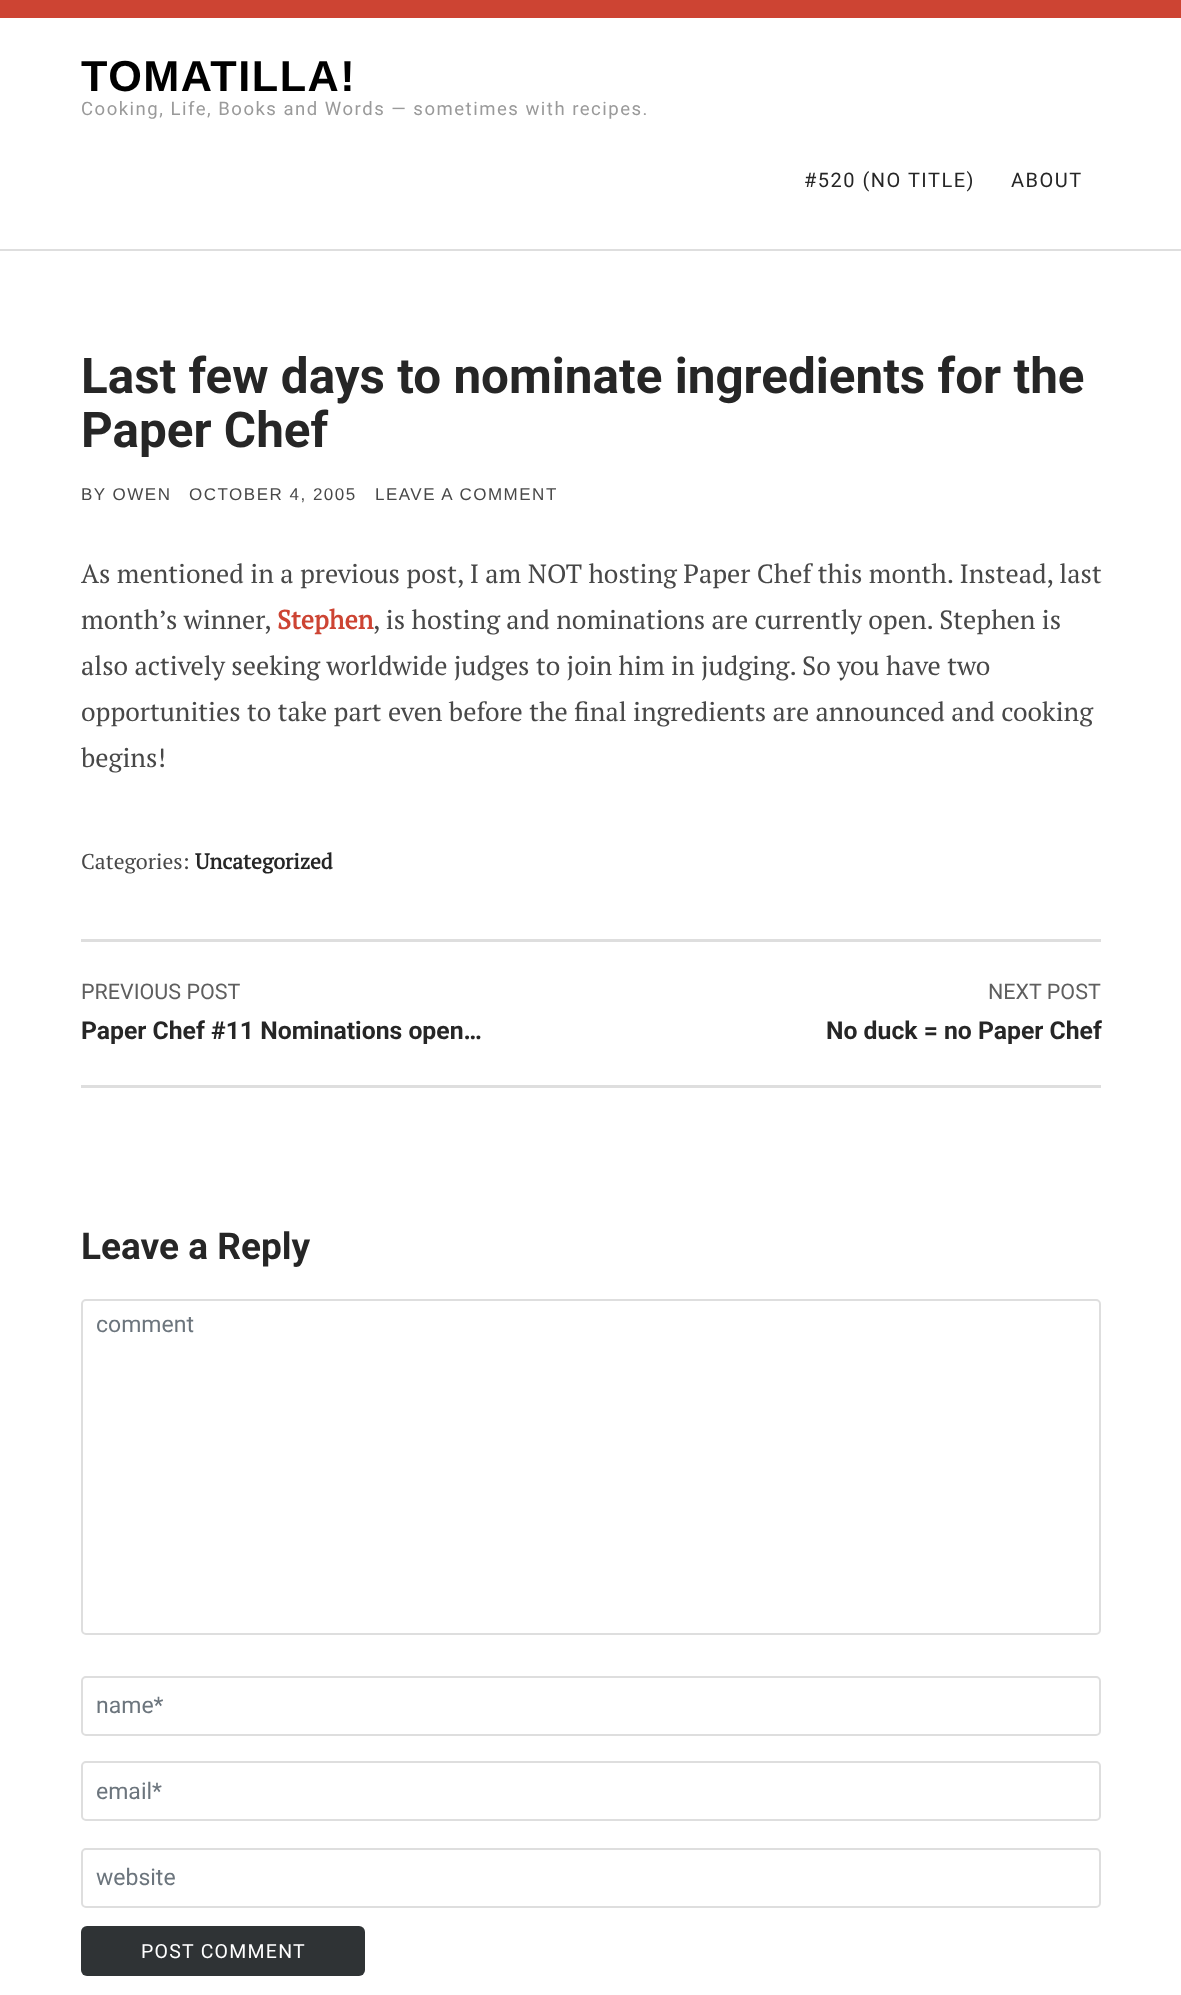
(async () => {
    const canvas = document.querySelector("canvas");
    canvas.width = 1181;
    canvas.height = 1995;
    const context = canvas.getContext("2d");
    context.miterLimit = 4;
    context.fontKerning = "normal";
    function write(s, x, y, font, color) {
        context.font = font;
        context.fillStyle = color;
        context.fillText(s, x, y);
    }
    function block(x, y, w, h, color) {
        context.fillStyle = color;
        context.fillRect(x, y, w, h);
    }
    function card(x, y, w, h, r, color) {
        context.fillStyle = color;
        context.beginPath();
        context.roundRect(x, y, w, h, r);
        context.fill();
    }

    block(0, 0, 1181, 1995, "rgb(205, 68, 51)");
    block(0, 18, 1181, 1977, "rgb(255, 255, 255)");
    block(0, 249, 1181, 2, "rgb(222, 222, 222)");
    context.letterSpacing = "1.5px";
    write("TOMATILLA!", 81, 91, "bold 43.25px Liberation Sans", "rgb(0, 0, 0)");
    write("Cooking, Life, Books and Words — sometimes with recipes.", 81, 115, "18.55px Roboto", "rgb(154, 154, 154)");
    write("#520 (NO TITLE)", 804, 187, "20px Roboto", "rgb(38, 38, 38)");
    write("ABOUT", 1011, 187, "20px Roboto", "rgb(38, 38, 38)");
    context.letterSpacing = "0px";
    write("Last few days to nominate ingredients for the", 81, 393, "bold 49.4px Roboto", "rgb(38, 38, 38)");
    write("Paper Chef", 81, 447, "bold 49.4px Roboto", "rgb(38, 38, 38)");
    context.letterSpacing = "1.5px";
    write("BY OWEN", 81, 500, "17px Liberation Sans", "rgb(72, 72, 72)");
    write("OCTOBER 4, 2005", 189, 500, "17px Liberation Sans", "rgb(72, 72, 72)");
    write("LEAVE A COMMENT", 375, 500, "17px Liberation Sans", "rgb(72, 72, 72)");
    context.letterSpacing = "0px";
    write("As mentioned in a previous post, I am NOT hosting Paper Chef this month. Instead, last", 81, 583, "26.3px PT Serif", "rgb(72, 72, 72)");
    write("month’s winner,", 81, 629, "26.3px PT Serif", "rgb(72, 72, 72)");
    write("Stephen", 277, 629, "bold 26.3px PT Serif", "rgb(205, 68, 51)");
    write(", is hosting and nominations are currently open. Stephen is", 373, 629, "26.3px PT Serif", "rgb(72, 72, 72)");
    write("also actively seeking worldwide judges to join him in judging. So you have two", 81, 675, "26.3px PT Serif", "rgb(72, 72, 72)");
    write("opportunities to take part even before the final ingredients are announced and cooking", 81, 721, "26.3px PT Serif", "rgb(72, 72, 72)");
    write("begins!", 81, 767, "26.3px PT Serif", "rgb(72, 72, 72)");
    write("Categories:", 81, 869, "21.5px PT Serif", "rgb(72, 72, 72)");
    write("Uncategorized", 195, 869, "bold 21.5px PT Serif", "rgb(38, 38, 38)");
    block(81, 939, 1020, 3, "rgb(222, 222, 222)");
    block(81, 1085, 1020, 3, "rgb(222, 222, 222)");
    write("PREVIOUS POST", 81, 999, "21.5px Roboto", "rgb(95, 95, 95)");
    write("Paper Chef #11 Nominations open…", 81, 1039, "bold 24.75px Roboto", "rgb(38, 38, 38)");
    write("NEXT POST", 988, 999, "21.5px Roboto", "rgb(95, 95, 95)");
    write("No duck = no Paper Chef", 826, 1039, "bold 24.75px Roboto", "rgb(38, 38, 38)");
    write("Leave a Reply", 81, 1259, "bold 37px Roboto", "rgb(38, 38, 38)");
    context.beginPath();
    context.roundRect(82, 1300, 1018, 334, 4);
    context.strokeStyle = "rgb(222, 222, 222)";
    context.lineWidth = 2;
    context.stroke();
    write("comment", 96, 1332, "23px Roboto", "rgb(108, 117, 125)");
    context.beginPath();
    context.roundRect(82, 1677, 1018, 58, 4);
    context.stroke();
    write("name*", 96, 1713, "23px Roboto", "rgb(108, 117, 125)");
    context.beginPath();
    context.roundRect(82, 1762, 1018, 58, 4);
    context.stroke();
    write("email*", 96, 1799, "23px Roboto", "rgb(108, 117, 125)");
    context.beginPath();
    context.roundRect(82, 1849, 1018, 58, 4);
    context.stroke();
    write("website", 96, 1885, "23px Roboto", "rgb(108, 117, 125)");
    card(81, 1926, 284, 50, 6, "rgb(47, 51, 53)");
    context.letterSpacing = "1.25px";
    write("POST COMMENT", 141, 1958, "19.5px Roboto", "rgb(255, 255, 255)");
})();
